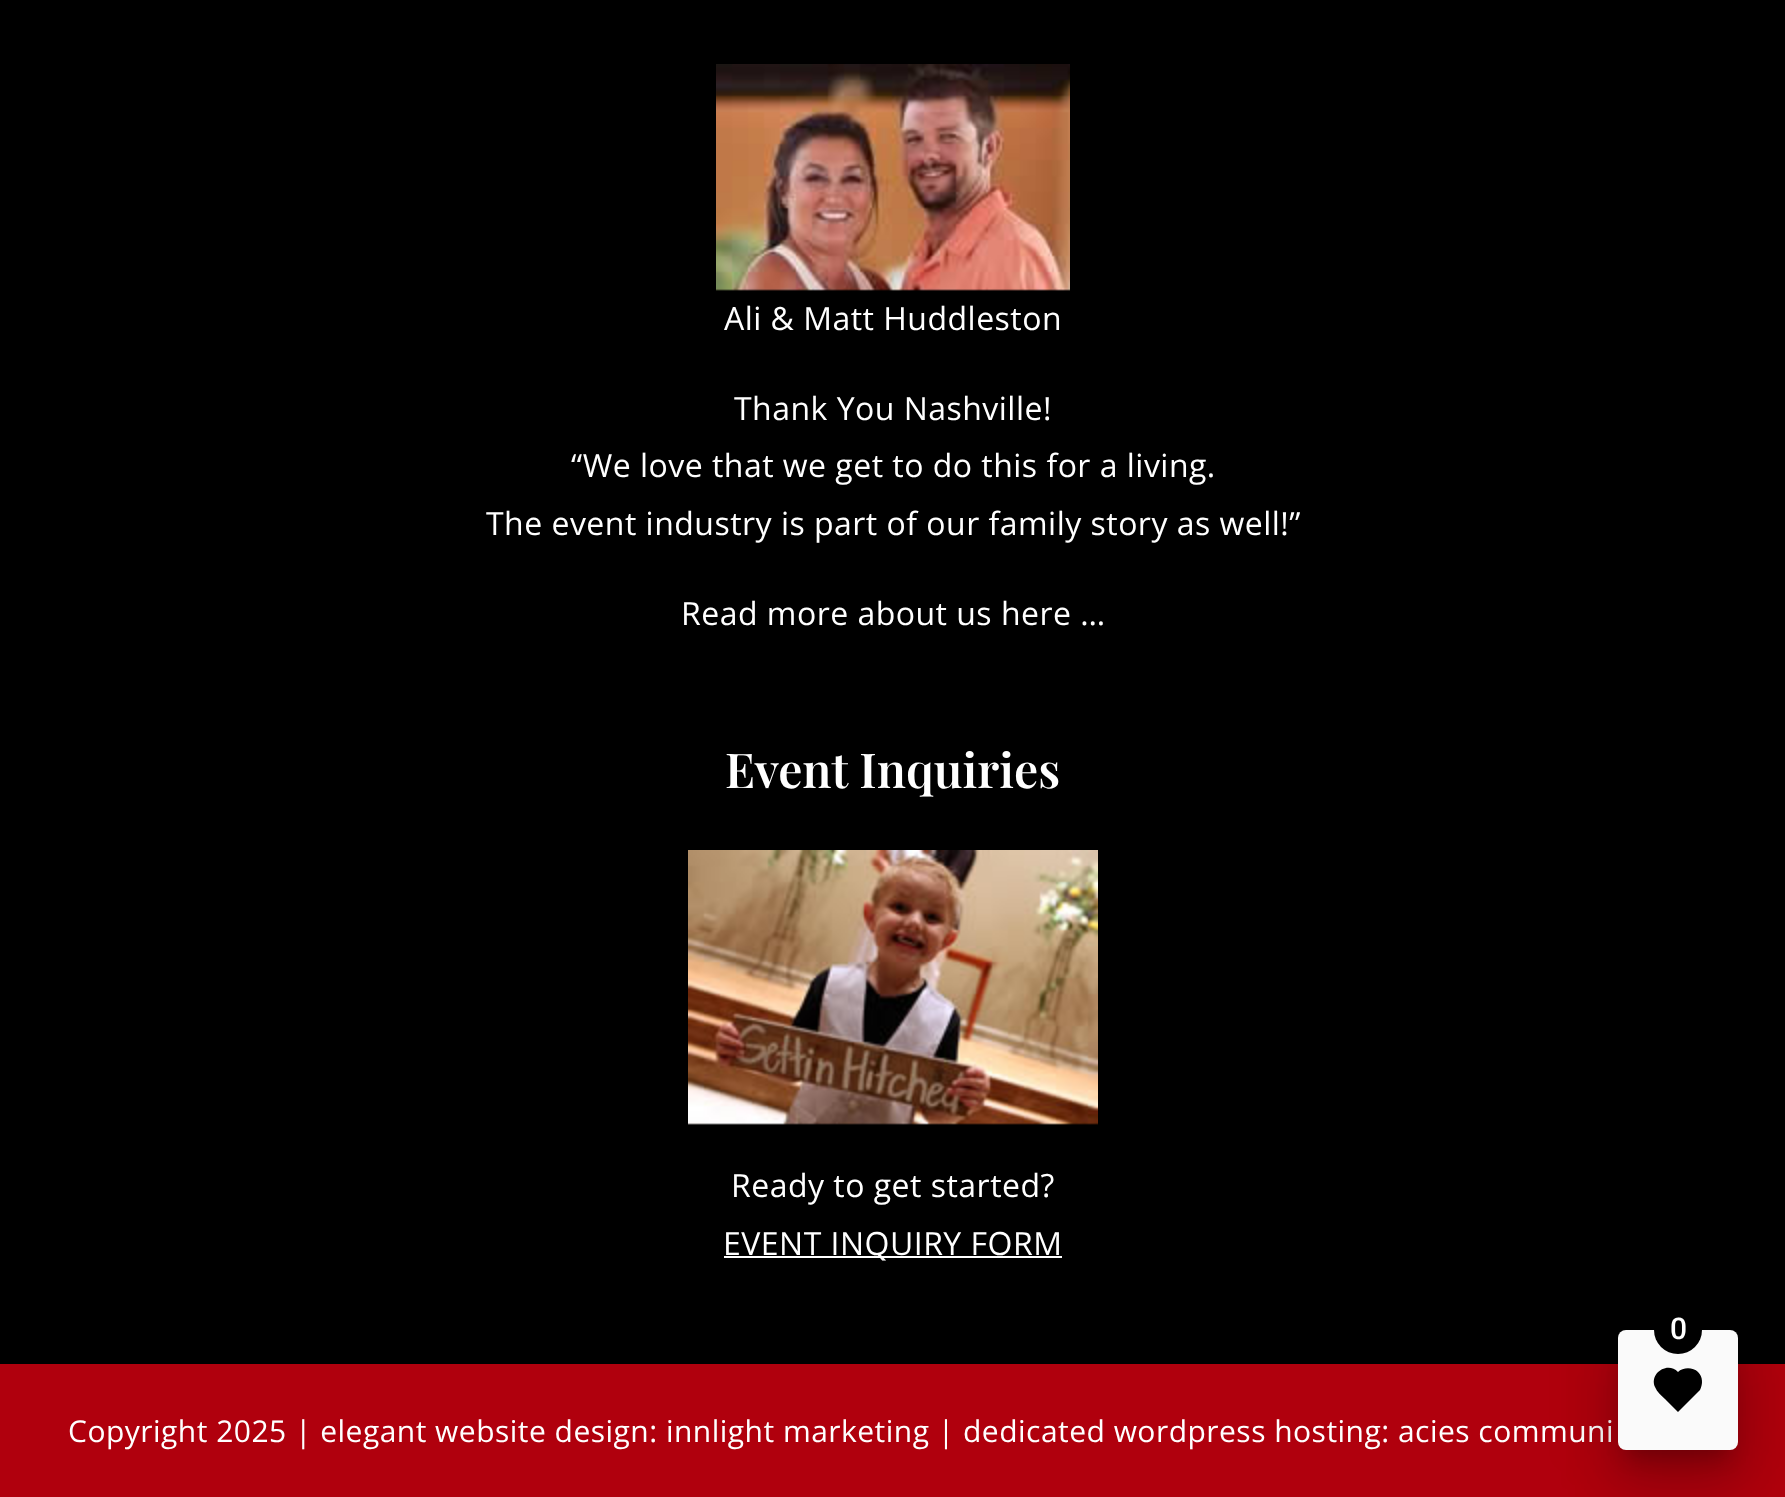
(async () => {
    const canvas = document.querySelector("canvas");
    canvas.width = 1785;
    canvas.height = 1497;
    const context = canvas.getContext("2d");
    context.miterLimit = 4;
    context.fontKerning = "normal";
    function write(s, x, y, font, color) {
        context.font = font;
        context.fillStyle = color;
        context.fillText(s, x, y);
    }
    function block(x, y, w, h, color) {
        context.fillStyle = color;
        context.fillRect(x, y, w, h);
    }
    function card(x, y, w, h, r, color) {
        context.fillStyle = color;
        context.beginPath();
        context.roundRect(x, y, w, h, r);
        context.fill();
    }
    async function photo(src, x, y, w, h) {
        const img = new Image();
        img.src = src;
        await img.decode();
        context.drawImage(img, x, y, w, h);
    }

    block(0, 0, 1785, 1497, "rgb(0, 0, 0)");
    await photo("media/1.png", 716, 64, 354, 227);
    context.letterSpacing = "0.48px";
    write("Ali & Matt Huddleston", 724, 330, "32px Open Sans", "rgb(255, 255, 255)");
    write("Thank You Nashville!", 734, 420, "32px Open Sans", "rgb(255, 255, 255)");
    write("“We love that we get to do this for a living.", 571, 477, "32px Open Sans", "rgb(255, 255, 255)");
    write("The event industry is part of our family story as well!”", 486, 535, "32px Open Sans", "rgb(255, 255, 255)");
    write("Read more about us here …", 681, 625, "32px Open Sans", "rgb(255, 255, 255)");
    context.letterSpacing = "0px";
    write("Event Inquiries", 725, 788, "600 48px Playfair Display", "rgb(255, 255, 255)");
    await photo("media/2.png", 688, 850, 410, 275);
    context.letterSpacing = "0.48px";
    write("Ready to get started?", 731, 1197, "32px Open Sans", "rgb(255, 255, 255)");
    block(724, 1256, 338, 2, "rgb(255, 255, 255)");
    write("EVENT INQUIRY FORM", 723, 1255, "32px Open Sans", "rgb(255, 255, 255)");
    block(0, 1364, 1785, 133, "rgb(176, 0, 13)");
    write("Copyright 2025 | elegant website design: innlight marketing | dedicated wordpress hosting: acies communi", 68, 1442, "30px Open Sans", "rgb(255, 255, 255)");
    context.fillStyle = "rgba(0, 0, 0, 0.2)";
    context.filter = "blur(10px)";
    context.beginPath();
    context.rect(1628, 1356, 100, 100);
    context.fill();
    context.filter = "none";
    context.fillStyle = "rgba(0, 0, 0, 0.12)";
    context.filter = "blur(30px)";
    context.beginPath();
    context.roundRect(1608, 1332, 140, 140, 18);
    context.fill();
    context.filter = "none";
    context.fillStyle = "rgba(0, 0, 0, 0.14)";
    context.filter = "blur(24px)";
    context.beginPath();
    context.roundRect(1614, 1358, 128, 128, 12);
    context.fill();
    context.filter = "none";
    card(1618, 1330, 120, 120, 8, "rgb(250, 250, 250)");
    context.fillStyle = "rgb(0, 0, 0)";
    context.beginPath();
    context.arc(1678, 1330, 24, 0, Math.PI * 2);
    context.fill();
    context.letterSpacing = "-1px";
    write("0", 1670, 1339, "500 30px Roboto", "rgb(255, 255, 255)");
    context.fillStyle = "rgb(0, 0, 0)";
    context.beginPath();
    context.moveTo(1698, 1372);
    context.bezierCurveTo(1693, 1367, 1683, 1367, 1678, 1372);
    context.bezierCurveTo(1668, 1361, 1649, 1373, 1655, 1387);
    context.bezierCurveTo(1657, 1392, 1661, 1395, 1665, 1399);
    context.lineTo(1678, 1412);
    context.lineTo(1700, 1390);
    context.bezierCurveTo(1703, 1384, 1703, 1377, 1698, 1372);
    context.closePath();
    context.fill();
})();
